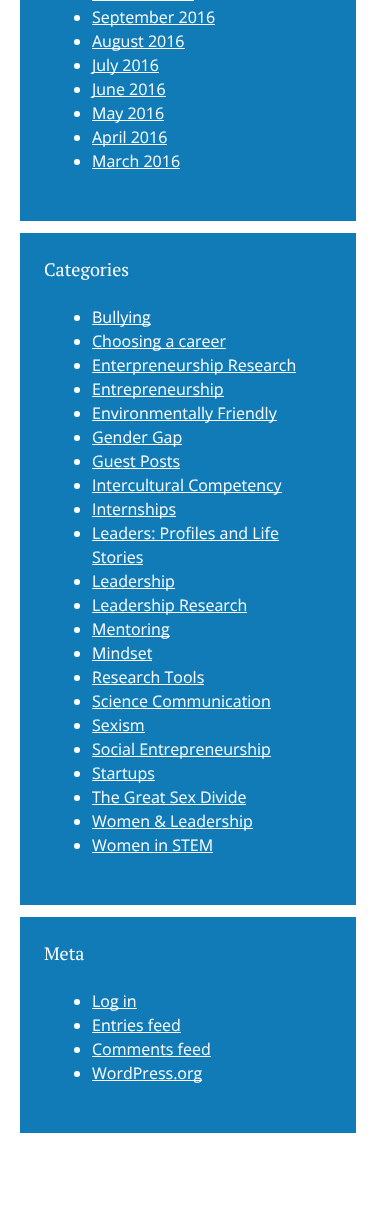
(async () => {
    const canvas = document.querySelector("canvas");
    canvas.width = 376;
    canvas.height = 1217;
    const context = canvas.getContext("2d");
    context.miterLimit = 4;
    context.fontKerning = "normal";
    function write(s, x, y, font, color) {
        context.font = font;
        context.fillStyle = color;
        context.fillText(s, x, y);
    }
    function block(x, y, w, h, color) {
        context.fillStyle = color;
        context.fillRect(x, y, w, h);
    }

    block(0, 0, 376, 1217, "rgb(255, 255, 255)");
    block(20, 0, 336, 221, "rgb(17, 123, 184)");
    block(92, 0, 102, 1, "rgb(255, 255, 255)");
    context.beginPath();
    context.arc(77, 18, 3, 0, Math.PI * 2);
    context.fill();
    block(92, 24, 123, 1, "rgb(255, 255, 255)");
    write("September 2016", 92, 23, "16px Open Sans", "rgb(255, 255, 255)");
    context.beginPath();
    context.arc(77, 42, 3, 0, Math.PI * 2);
    context.fill();
    block(92, 48, 93, 1, "rgb(255, 255, 255)");
    write("August 2016", 92, 47, "16px Open Sans", "rgb(255, 255, 255)");
    context.beginPath();
    context.arc(77, 66, 3, 0, Math.PI * 2);
    context.fill();
    block(92, 72, 67, 1, "rgb(255, 255, 255)");
    write("July 2016", 92, 71, "16px Open Sans", "rgb(255, 255, 255)");
    context.beginPath();
    context.arc(77, 90, 3, 0, Math.PI * 2);
    context.fill();
    block(92, 96, 74, 1, "rgb(255, 255, 255)");
    write("June 2016", 92, 95, "16px Open Sans", "rgb(255, 255, 255)");
    context.beginPath();
    context.arc(77, 114, 3, 0, Math.PI * 2);
    context.fill();
    block(92, 120, 72, 1, "rgb(255, 255, 255)");
    write("May 2016", 92, 119, "16px Open Sans", "rgb(255, 255, 255)");
    context.beginPath();
    context.arc(77, 138, 3, 0, Math.PI * 2);
    context.fill();
    block(92, 144, 75, 1, "rgb(255, 255, 255)");
    write("April 2016", 92, 143, "16px Open Sans", "rgb(255, 255, 255)");
    context.beginPath();
    context.arc(77, 162, 3, 0, Math.PI * 2);
    context.fill();
    write("March 2016", 92, 167, "16px Open Sans", "rgb(255, 255, 255)");
    block(92, 168, 88, 1, "rgb(255, 255, 255)");
    block(20, 233, 336, 672, "rgb(17, 123, 184)");
    write("Categories", 44, 276, "18px PT Serif", "rgb(255, 255, 255)");
    context.beginPath();
    context.arc(77, 318, 3, 0, Math.PI * 2);
    context.fill();
    block(92, 324, 59, 1, "rgb(255, 255, 255)");
    write("Bullying", 92, 323, "16px Open Sans", "rgb(255, 255, 255)");
    context.beginPath();
    context.arc(77, 342, 3, 0, Math.PI * 2);
    context.fill();
    block(92, 348, 134, 1, "rgb(255, 255, 255)");
    write("Choosing a career", 92, 347, "16px Open Sans", "rgb(255, 255, 255)");
    context.beginPath();
    context.arc(77, 366, 3, 0, Math.PI * 2);
    context.fill();
    block(92, 372, 204, 1, "rgb(255, 255, 255)");
    write("Enterpreneurship Research", 92, 371, "16px Open Sans", "rgb(255, 255, 255)");
    context.beginPath();
    context.arc(77, 390, 3, 0, Math.PI * 2);
    context.fill();
    block(92, 396, 132, 1, "rgb(255, 255, 255)");
    write("Entrepreneurship", 92, 395, "16px Open Sans", "rgb(255, 255, 255)");
    context.beginPath();
    context.arc(77, 414, 3, 0, Math.PI * 2);
    context.fill();
    block(92, 420, 185, 1, "rgb(255, 255, 255)");
    write("Environmentally Friendly", 92, 419, "16px Open Sans", "rgb(255, 255, 255)");
    context.beginPath();
    context.arc(77, 438, 3, 0, Math.PI * 2);
    context.fill();
    block(92, 444, 90, 1, "rgb(255, 255, 255)");
    write("Gender Gap", 92, 443, "16px Open Sans", "rgb(255, 255, 255)");
    context.beginPath();
    context.arc(77, 462, 3, 0, Math.PI * 2);
    context.fill();
    write("Guest Posts", 92, 467, "16px Open Sans", "rgb(255, 255, 255)");
    block(92, 468, 88, 1, "rgb(255, 255, 255)");
    context.beginPath();
    context.arc(77, 486, 3, 0, Math.PI * 2);
    context.fill();
    block(92, 492, 190, 1, "rgb(255, 255, 255)");
    write("Intercultural Competency", 92, 491, "16px Open Sans", "rgb(255, 255, 255)");
    context.beginPath();
    context.arc(77, 510, 3, 0, Math.PI * 2);
    context.fill();
    block(92, 516, 84, 1, "rgb(255, 255, 255)");
    write("Internships", 92, 515, "16px Open Sans", "rgb(255, 255, 255)");
    context.beginPath();
    context.arc(77, 534, 3, 0, Math.PI * 2);
    context.fill();
    write("Leaders: Profiles and Life", 92, 539, "16px Open Sans", "rgb(255, 255, 255)");
    block(92, 540, 187, 1, "rgb(255, 255, 255)");
    write("Stories", 92, 563, "16px Open Sans", "rgb(255, 255, 255)");
    block(92, 564, 51, 1, "rgb(255, 255, 255)");
    context.beginPath();
    context.arc(77, 582, 3, 0, Math.PI * 2);
    context.fill();
    block(92, 588, 83, 1, "rgb(255, 255, 255)");
    write("Leadership", 92, 587, "16px Open Sans", "rgb(255, 255, 255)");
    context.beginPath();
    context.arc(77, 606, 3, 0, Math.PI * 2);
    context.fill();
    block(92, 612, 155, 1, "rgb(255, 255, 255)");
    write("Leadership Research", 92, 611, "16px Open Sans", "rgb(255, 255, 255)");
    context.beginPath();
    context.arc(77, 630, 3, 0, Math.PI * 2);
    context.fill();
    block(92, 636, 78, 1, "rgb(255, 255, 255)");
    write("Mentoring", 92, 635, "16px Open Sans", "rgb(255, 255, 255)");
    context.beginPath();
    context.arc(77, 654, 3, 0, Math.PI * 2);
    context.fill();
    write("Mindset", 92, 659, "16px Open Sans", "rgb(255, 255, 255)");
    block(92, 660, 60, 1, "rgb(255, 255, 255)");
    context.beginPath();
    context.arc(77, 678, 3, 0, Math.PI * 2);
    context.fill();
    write("Research Tools", 92, 683, "16px Open Sans", "rgb(255, 255, 255)");
    block(92, 684, 112, 1, "rgb(255, 255, 255)");
    context.beginPath();
    context.arc(77, 702, 3, 0, Math.PI * 2);
    context.fill();
    write("Science Communication", 92, 707, "16px Open Sans", "rgb(255, 255, 255)");
    block(92, 708, 179, 1, "rgb(255, 255, 255)");
    context.beginPath();
    context.arc(77, 726, 3, 0, Math.PI * 2);
    context.fill();
    write("Sexism", 92, 731, "16px Open Sans", "rgb(255, 255, 255)");
    block(92, 732, 53, 1, "rgb(255, 255, 255)");
    context.beginPath();
    context.arc(77, 750, 3, 0, Math.PI * 2);
    context.fill();
    block(92, 756, 179, 1, "rgb(255, 255, 255)");
    write("Social Entrepreneurship", 92, 755, "16px Open Sans", "rgb(255, 255, 255)");
    context.beginPath();
    context.arc(77, 774, 3, 0, Math.PI * 2);
    context.fill();
    block(92, 780, 63, 1, "rgb(255, 255, 255)");
    write("Startups", 92, 779, "16px Open Sans", "rgb(255, 255, 255)");
    context.beginPath();
    context.arc(77, 798, 3, 0, Math.PI * 2);
    context.fill();
    write("The Great Sex Divide", 92, 803, "16px Open Sans", "rgb(255, 255, 255)");
    block(92, 804, 154, 1, "rgb(255, 255, 255)");
    context.beginPath();
    context.arc(77, 822, 3, 0, Math.PI * 2);
    context.fill();
    block(92, 828, 161, 1, "rgb(255, 255, 255)");
    write("Women & Leadership", 92, 827, "16px Open Sans", "rgb(255, 255, 255)");
    context.beginPath();
    context.arc(77, 846, 3, 0, Math.PI * 2);
    context.fill();
    write("Women in STEM", 92, 851, "16px Open Sans", "rgb(255, 255, 255)");
    block(92, 852, 121, 1, "rgb(255, 255, 255)");
    block(20, 917, 336, 216, "rgb(17, 123, 184)");
    write("Meta", 44, 960, "18px PT Serif", "rgb(255, 255, 255)");
    context.beginPath();
    context.arc(77, 1002, 3, 0, Math.PI * 2);
    context.fill();
    block(92, 1008, 45, 1, "rgb(255, 255, 255)");
    write("Log in", 92, 1007, "16px Open Sans", "rgb(255, 255, 255)");
    context.beginPath();
    context.arc(77, 1026, 3, 0, Math.PI * 2);
    context.fill();
    write("Entries feed", 92, 1031, "16px Open Sans", "rgb(255, 255, 255)");
    block(92, 1032, 89, 1, "rgb(255, 255, 255)");
    context.beginPath();
    context.arc(77, 1050, 3, 0, Math.PI * 2);
    context.fill();
    write("Comments feed", 92, 1055, "16px Open Sans", "rgb(255, 255, 255)");
    block(92, 1056, 119, 1, "rgb(255, 255, 255)");
    context.beginPath();
    context.arc(77, 1074, 3, 0, Math.PI * 2);
    context.fill();
    block(92, 1080, 110, 1, "rgb(255, 255, 255)");
    write("WordPress.org", 92, 1079, "16px Open Sans", "rgb(255, 255, 255)");
})();
